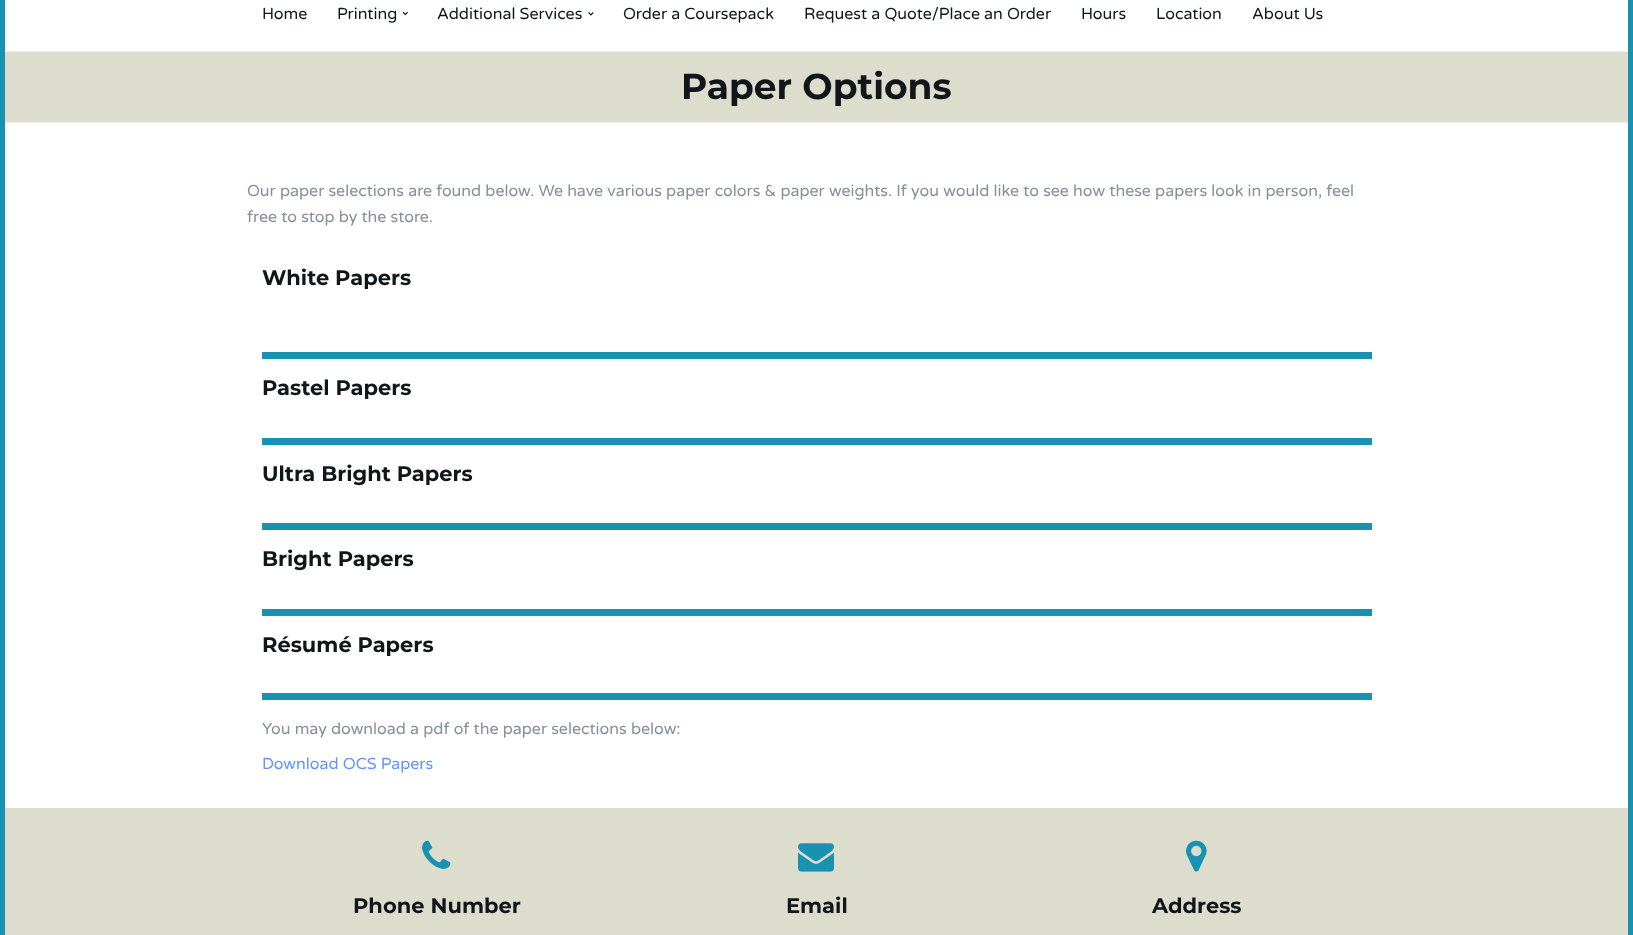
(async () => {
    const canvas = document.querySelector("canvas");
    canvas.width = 1633;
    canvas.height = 935;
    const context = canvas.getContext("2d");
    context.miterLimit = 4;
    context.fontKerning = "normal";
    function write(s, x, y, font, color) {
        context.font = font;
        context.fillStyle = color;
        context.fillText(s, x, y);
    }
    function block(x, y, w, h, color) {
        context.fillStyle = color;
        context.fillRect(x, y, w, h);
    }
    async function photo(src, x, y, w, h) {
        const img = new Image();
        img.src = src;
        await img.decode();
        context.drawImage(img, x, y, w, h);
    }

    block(0, 0, 1633, 935, "rgb(255, 255, 255)");
    context.strokeStyle = "rgb(25, 145, 177)";
    context.lineWidth = 5;
    context.strokeRect(2.5, -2.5, 1628, 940);
    write("Home", 262, 19, "16px Varela Round", "rgb(16, 22, 26)");
    write("Printing", 337, 19, "16px Varela Round", "rgb(16, 22, 26)");
    await photo("media/1.png", 402, 11, 6, 5);
    write("Additional Services", 437, 19, "16px Varela Round", "rgb(16, 22, 26)");
    await photo("media/2.png", 588, 12, 6, 4);
    write("Order a Coursepack", 623, 19, "16px Varela Round", "rgb(16, 22, 26)");
    write("Request a Quote/Place an Order", 804, 19, "16px Varela Round", "rgb(16, 22, 26)");
    write("Hours", 1081, 19, "16px Varela Round", "rgb(16, 22, 26)");
    write("Location", 1156, 19, "16px Varela Round", "rgb(16, 22, 26)");
    write("About Us", 1252, 19, "16px Varela Round", "rgb(16, 22, 26)");
    block(5, 52, 1623, 70, "rgb(221, 221, 206)");
    block(5, 51, 1623, 1, "rgb(238, 238, 238)");
    block(5, 122, 1623, 1, "rgb(238, 238, 238)");
    write("Paper Options", 681, 99, "bold 36px Montserrat", "rgb(16, 22, 26)");
    write("Our paper selections are found below. We have various paper colors & paper weights. If you would like to see how these papers look in person, feel", 247, 196, "16px Varela Round", "rgb(134, 143, 155)");
    write("free to stop by the store.", 247, 222, "16px Varela Round", "rgb(134, 143, 155)");
    write("White Papers", 262, 285, "bold 21px Montserrat", "rgb(16, 22, 26)");
    block(262, 352, 1110, 7, "rgb(25, 145, 177)");
    write("Pastel Papers", 262, 395, "bold 21px Montserrat", "rgb(16, 22, 26)");
    block(262, 438, 1110, 7, "rgb(25, 145, 177)");
    write("Ultra Bright Papers", 262, 481, "bold 21px Montserrat", "rgb(16, 22, 26)");
    block(262, 523, 1110, 7, "rgb(25, 145, 177)");
    write("Bright Papers", 262, 566, "bold 21px Montserrat", "rgb(16, 22, 26)");
    block(262, 609, 1110, 7, "rgb(25, 145, 177)");
    write("Résumé Papers", 262, 652, "bold 21px Montserrat", "rgb(16, 22, 26)");
    block(262, 693, 1110, 7, "rgb(25, 145, 177)");
    write("You may download a pdf of the paper selections below:", 262, 734, "16px Varela Round", "rgb(134, 143, 155)");
    write("Download OCS Papers", 262, 769, "16px Varela Round", "rgb(97, 149, 255)");
    block(5, 808, 1623, 127, "rgb(221, 221, 206)");
    await photo("media/3.png", 422, 840, 29, 29);
    write("Phone Number", 353, 913, "bold 21px Montserrat", "rgb(16, 22, 26)");
    await photo("media/4.png", 798, 843, 36, 29);
    write("Email", 786, 913, "bold 21px Montserrat", "rgb(16, 22, 26)");
    await photo("media/5.png", 1186, 840, 21, 32);
    write("Address", 1152, 913, "bold 21px Montserrat", "rgb(16, 22, 26)");
})();
